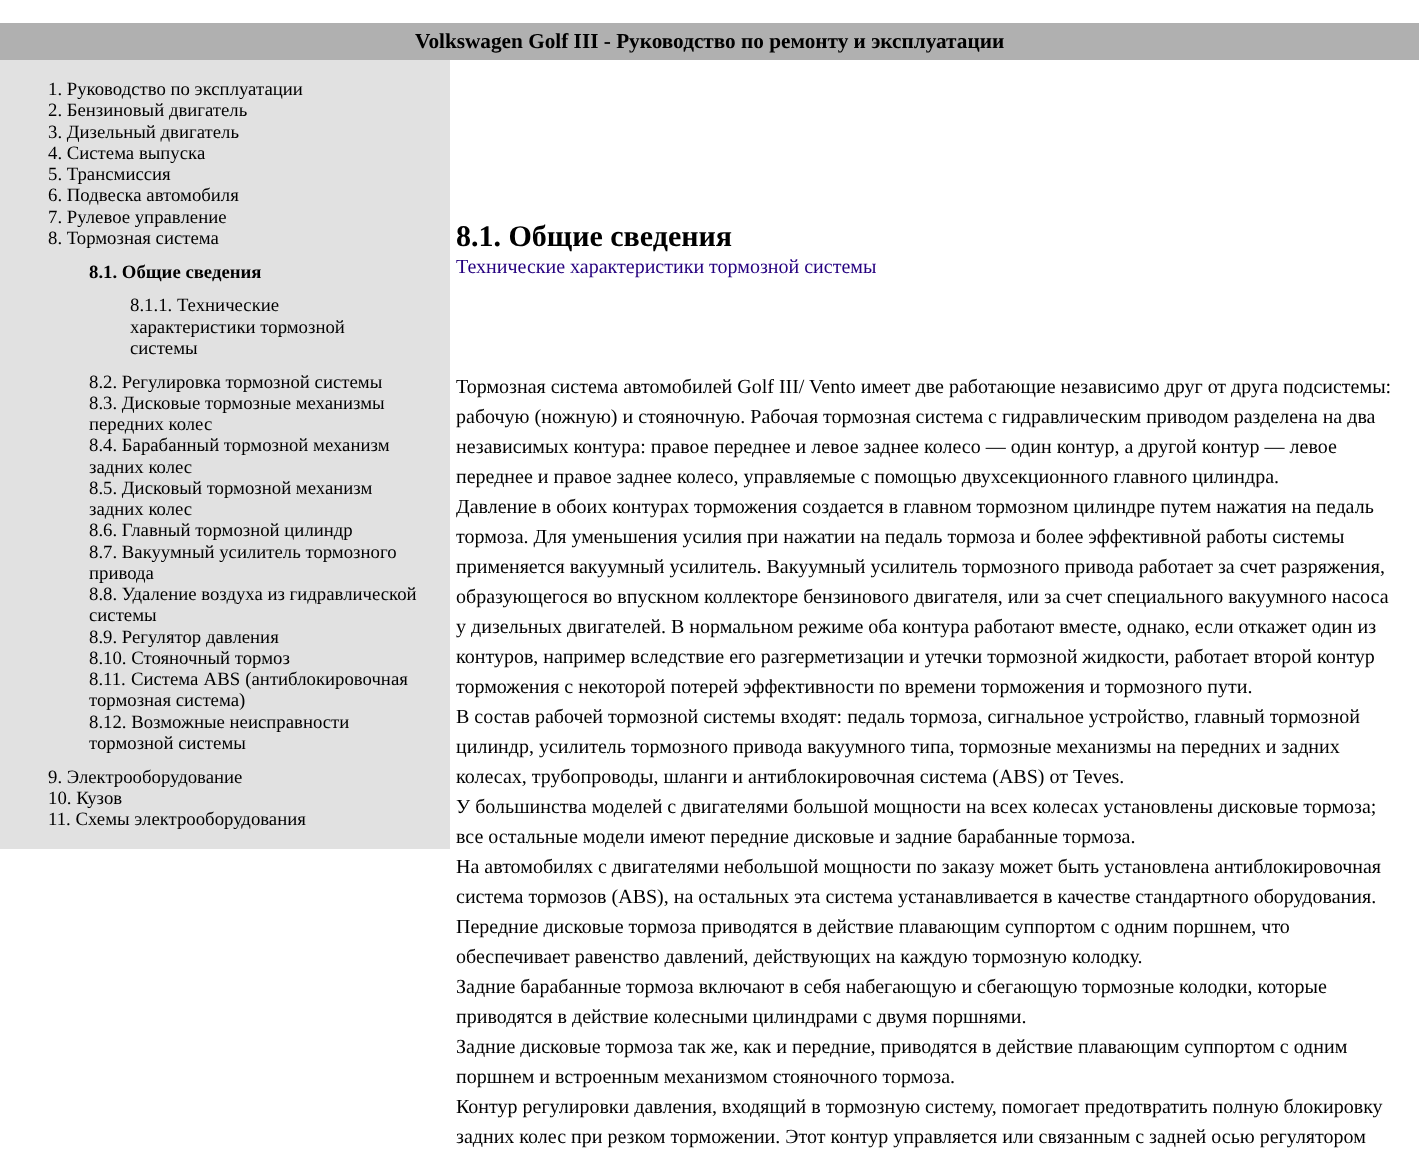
(async () => {
    const canvas = document.querySelector("canvas");
    canvas.width = 1419;
    canvas.height = 1169;
    const context = canvas.getContext("2d");
    context.miterLimit = 4;
    context.fontKerning = "normal";
    function write(s, x, y, font, color) {
        context.font = font;
        context.fillStyle = color;
        context.fillText(s, x, y);
    }
    function block(x, y, w, h, color) {
        context.fillStyle = color;
        context.fillRect(x, y, w, h);
    }

    block(0, 0, 1419, 1169, "rgb(255, 255, 255)");
    block(0, 23, 1419, 37, "rgb(176, 176, 176)");
    write("Volkswagen Golf III - Руководство по ремонту и эксплуатации", 415, 48, "bold 21.25px Liberation Serif", "rgb(0, 0, 0)");
    block(0, 60, 450, 789, "rgb(225, 225, 225)");
    write("1. Руководство по эксплуатации", 48, 95, "18.75px Liberation Serif", "rgb(0, 0, 0)");
    write("2. Бензиновый двигатель", 48, 116, "18.75px Liberation Serif", "rgb(0, 0, 0)");
    write("3. Дизельный двигатель", 48, 138, "18.75px Liberation Serif", "rgb(0, 0, 0)");
    write("4. Система выпуска", 48, 159, "18.75px Liberation Serif", "rgb(0, 0, 0)");
    write("5. Трансмиссия", 48, 180, "18.75px Liberation Serif", "rgb(0, 0, 0)");
    write("6. Подвеска автомобиля", 48, 201, "18.75px Liberation Serif", "rgb(0, 0, 0)");
    write("7. Рулевое управление", 48, 223, "18.75px Liberation Serif", "rgb(0, 0, 0)");
    write("8. Тормозная система", 48, 244, "18.75px Liberation Serif", "rgb(0, 0, 0)");
    write("8.1. Общие сведения", 89, 278, "bold 18.75px Liberation Serif", "rgb(0, 0, 0)");
    write("8.1.1. Технические", 130, 311, "18.75px Liberation Serif", "rgb(0, 0, 0)");
    write("характеристики тормозной", 130, 333, "18.75px Liberation Serif", "rgb(0, 0, 0)");
    write("системы", 130, 354, "18.75px Liberation Serif", "rgb(0, 0, 0)");
    write("8.2. Регулировка тормозной системы", 89, 388, "18.75px Liberation Serif", "rgb(0, 0, 0)");
    write("8.3. Дисковые тормозные механизмы", 89, 409, "18.75px Liberation Serif", "rgb(0, 0, 0)");
    write("передних колес", 89, 430, "18.75px Liberation Serif", "rgb(0, 0, 0)");
    write("8.4. Барабанный тормозной механизм", 89, 451, "18.75px Liberation Serif", "rgb(0, 0, 0)");
    write("задних колес", 89, 473, "18.75px Liberation Serif", "rgb(0, 0, 0)");
    write("8.5. Дисковый тормозной механизм", 89, 494, "18.75px Liberation Serif", "rgb(0, 0, 0)");
    write("задних колес", 89, 515, "18.75px Liberation Serif", "rgb(0, 0, 0)");
    write("8.6. Главный тормозной цилиндр", 89, 536, "18.75px Liberation Serif", "rgb(0, 0, 0)");
    write("8.7. Вакуумный усилитель тормозного", 89, 558, "18.75px Liberation Serif", "rgb(0, 0, 0)");
    write("привода", 89, 579, "18.75px Liberation Serif", "rgb(0, 0, 0)");
    write("8.8. Удаление воздуха из гидравлической", 89, 600, "18.75px Liberation Serif", "rgb(0, 0, 0)");
    write("системы", 89, 621, "18.75px Liberation Serif", "rgb(0, 0, 0)");
    write("8.9. Регулятор давления", 89, 643, "18.75px Liberation Serif", "rgb(0, 0, 0)");
    write("8.10. Стояночный тормоз", 89, 664, "18.75px Liberation Serif", "rgb(0, 0, 0)");
    context.wordSpacing = "0.5px";
    write("8.11. Система ABS (антиблокировочная", 89, 685, "18.75px Liberation Serif", "rgb(0, 0, 0)");
    context.wordSpacing = "0px";
    write("тормозная система)", 89, 706, "18.75px Liberation Serif", "rgb(0, 0, 0)");
    write("8.12. Возможные неисправности", 89, 728, "18.75px Liberation Serif", "rgb(0, 0, 0)");
    write("тормозной системы", 89, 749, "18.75px Liberation Serif", "rgb(0, 0, 0)");
    write("9. Электрооборудование", 48, 783, "18.75px Liberation Serif", "rgb(0, 0, 0)");
    write("10. Кузов", 48, 804, "18.75px Liberation Serif", "rgb(0, 0, 0)");
    write("11. Схемы электрооборудования", 48, 825, "18.75px Liberation Serif", "rgb(0, 0, 0)");
    write("8.1. Общие сведения", 456, 246, "bold 30px Liberation Serif", "rgb(0, 0, 0)");
    write("Технические характеристики тормозной системы", 456, 273, "20px Liberation Serif", "rgb(37, 0, 127)");
    write("Тормозная система автомобилей Golf III/ Vento имеет две работающие независимо друг от друга подсистемы:", 456, 393, "20px Liberation Serif", "rgb(0, 0, 0)");
    write("рабочую (ножную) и стояночную. Рабочая тормозная система с гидравлическим приводом разделена на два", 456, 423, "20px Liberation Serif", "rgb(0, 0, 0)");
    write("независимых контура: правое переднее и левое заднее колесо — один контур, а другой контур — левое", 456, 453, "20px Liberation Serif", "rgb(0, 0, 0)");
    write("переднее и правое заднее колесо, управляемые с помощью двухсекционного главного цилиндра.", 456, 483, "20px Liberation Serif", "rgb(0, 0, 0)");
    write("Давление в обоих контурах торможения создается в главном тормозном цилиндре путем нажатия на педаль", 456, 513, "20px Liberation Serif", "rgb(0, 0, 0)");
    write("тормоза. Для уменьшения усилия при нажатии на педаль тормоза и более эффективной работы системы", 456, 543, "20px Liberation Serif", "rgb(0, 0, 0)");
    write("применяется вакуумный усилитель. Вакуумный усилитель тормозного привода работает за счет разряжения,", 456, 573, "20px Liberation Serif", "rgb(0, 0, 0)");
    write("образующегося во впускном коллекторе бензинового двигателя, или за счет специального вакуумного насоса", 456, 603, "20px Liberation Serif", "rgb(0, 0, 0)");
    write("у дизельных двигателей. В нормальном режиме оба контура работают вместе, однако, если откажет один из", 456, 633, "20px Liberation Serif", "rgb(0, 0, 0)");
    write("контуров, например вследствие его разгерметизации и утечки тормозной жидкости, работает второй контур", 456, 663, "20px Liberation Serif", "rgb(0, 0, 0)");
    write("торможения с некоторой потерей эффективности по времени торможения и тормозного пути.", 456, 693, "20px Liberation Serif", "rgb(0, 0, 0)");
    write("В состав рабочей тормозной системы входят: педаль тормоза, сигнальное устройство, главный тормозной", 456, 723, "20px Liberation Serif", "rgb(0, 0, 0)");
    write("цилиндр, усилитель тормозного привода вакуумного типа, тормозные механизмы на передних и задних", 456, 753, "20px Liberation Serif", "rgb(0, 0, 0)");
    write("колесах, трубопроводы, шланги и антиблокировочная система (АВS) от Teves.", 456, 783, "20px Liberation Serif", "rgb(0, 0, 0)");
    write("У большинства моделей с двигателями большой мощности на всех колесах установлены дисковые тормоза;", 456, 813, "20px Liberation Serif", "rgb(0, 0, 0)");
    write("все остальные модели имеют передние дисковые и задние барабанные тормоза.", 456, 843, "20px Liberation Serif", "rgb(0, 0, 0)");
    write("На автомобилях с двигателями небольшой мощности по заказу может быть установлена антиблокировочная", 456, 873, "20px Liberation Serif", "rgb(0, 0, 0)");
    write("система тормозов (АВS), на остальных эта система устанавливается в качестве стандартного оборудования.", 456, 903, "20px Liberation Serif", "rgb(0, 0, 0)");
    write("Передние дисковые тормоза приводятся в действие плавающим суппортом с одним поршнем, что", 456, 933, "20px Liberation Serif", "rgb(0, 0, 0)");
    write("обеспечивает равенство давлений, действующих на каждую тормозную колодку.", 456, 963, "20px Liberation Serif", "rgb(0, 0, 0)");
    write("Задние барабанные тормоза включают в себя набегающую и сбегающую тормозные колодки, которые", 456, 993, "20px Liberation Serif", "rgb(0, 0, 0)");
    write("приводятся в действие колесными цилиндрами с двумя поршнями.", 456, 1023, "20px Liberation Serif", "rgb(0, 0, 0)");
    write("Задние дисковые тормоза так же, как и передние, приводятся в действие плавающим суппортом с одним", 456, 1053, "20px Liberation Serif", "rgb(0, 0, 0)");
    write("поршнем и встроенным механизмом стояночного тормоза.", 456, 1083, "20px Liberation Serif", "rgb(0, 0, 0)");
    write("Контур регулировки давления, входящий в тормозную систему, помогает предотвратить полную блокировку", 456, 1113, "20px Liberation Serif", "rgb(0, 0, 0)");
    write("задних колес при резком торможении. Этот контур управляется или связанным с задней осью регулятором", 456, 1143, "20px Liberation Serif", "rgb(0, 0, 0)");
})();
